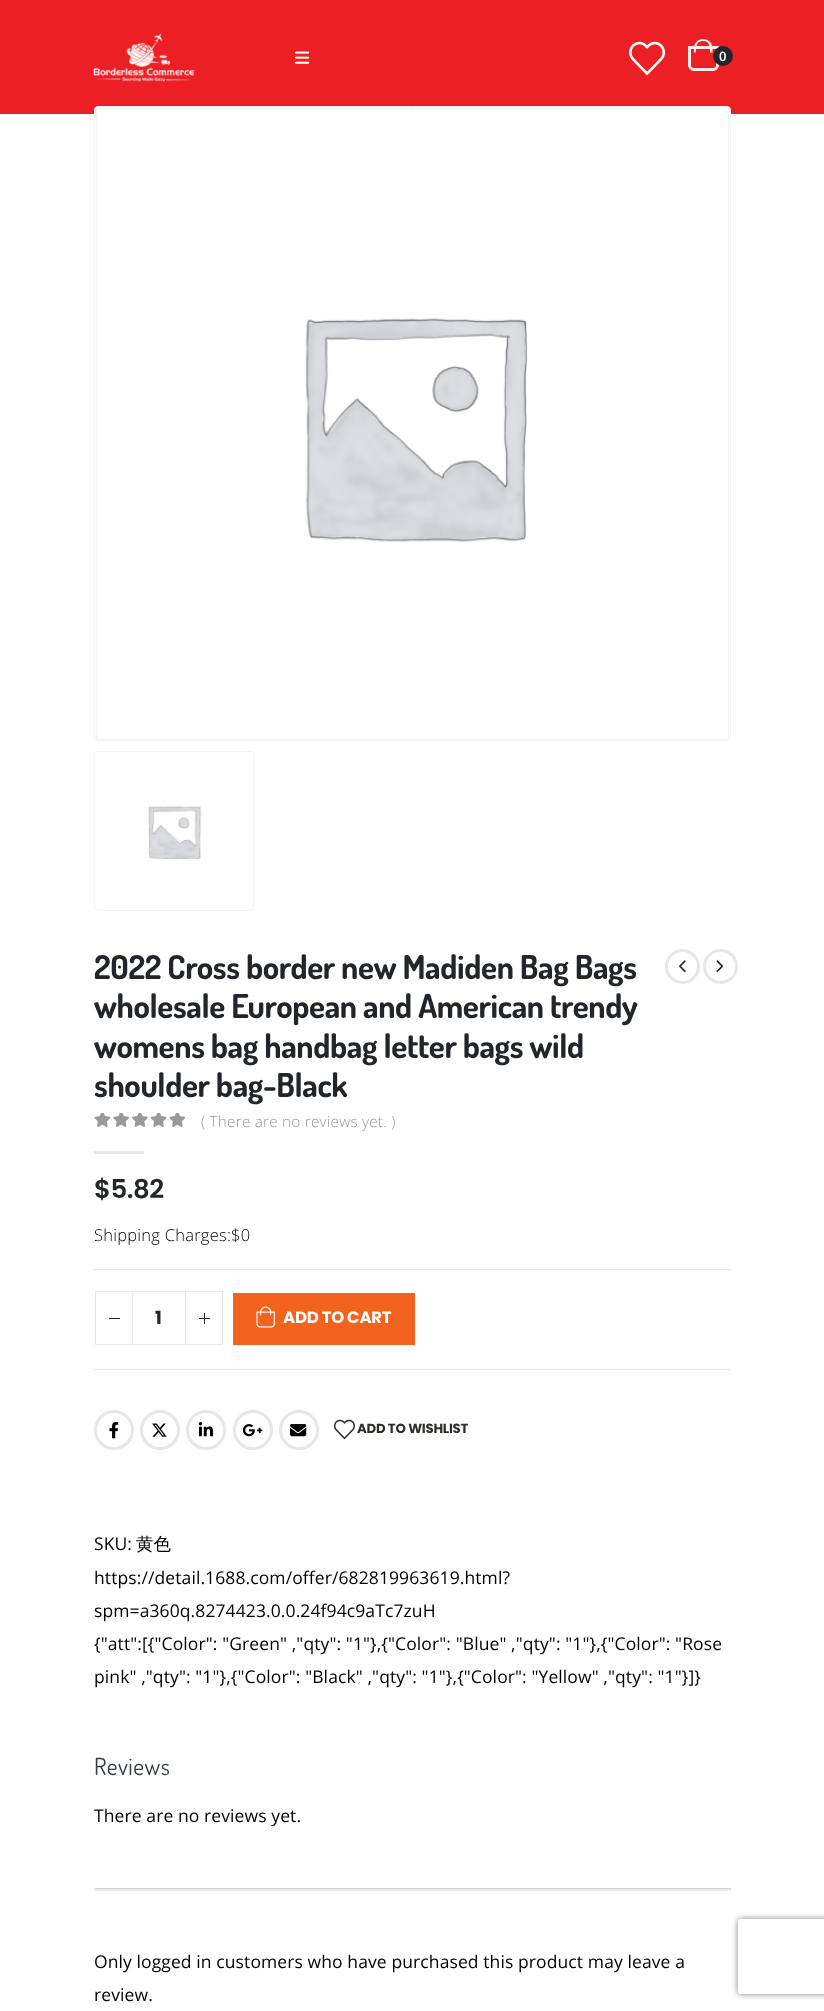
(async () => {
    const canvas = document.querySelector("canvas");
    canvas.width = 824;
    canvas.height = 2011;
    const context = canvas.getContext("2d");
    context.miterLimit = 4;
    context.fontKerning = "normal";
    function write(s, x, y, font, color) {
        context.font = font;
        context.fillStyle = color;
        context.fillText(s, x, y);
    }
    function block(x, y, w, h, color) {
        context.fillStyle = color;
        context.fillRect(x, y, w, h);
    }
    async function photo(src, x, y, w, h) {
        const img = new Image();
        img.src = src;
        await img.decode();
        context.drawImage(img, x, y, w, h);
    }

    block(0, 0, 824, 2011, "rgb(255, 255, 255)");
    block(0, 0, 824, 114, "rgb(236, 31, 36)");
    await photo("media/1.png", 93, 33, 101, 49);
    await photo("media/2.png", 295, 51, 15, 13);
    await photo("media/3.png", 629, 41, 36, 35);
    context.beginPath();
    context.roundRect(689.5, 47.5, 28, 22, [0, 0, 4.5, 4.5]);
    context.strokeStyle = "rgb(253, 233, 233)";
    context.lineWidth = 3;
    context.stroke();
    context.fillStyle = "rgb(253, 233, 233)";
    context.beginPath();
    context.moveTo(703, 39);
    context.bezierCurveTo(708.5, 39, 712.5, 43, 712.5, 48);
    context.lineTo(712.5, 52.5);
    context.lineTo(694, 52.5);
    context.lineTo(694, 48);
    context.bezierCurveTo(694, 43, 698, 39, 703, 39);
    context.closePath();
    context.moveTo(703, 41);
    context.bezierCurveTo(710, 41, 710, 47.5, 710, 52.5);
    context.lineTo(696, 52.5);
    context.bezierCurveTo(696, 47.5, 696, 41, 703, 41);
    context.closePath();
    context.fill("evenodd");
    context.fillStyle = "rgb(34, 37, 41)";
    context.beginPath();
    context.arc(723, 56, 10, 0, Math.PI * 2);
    context.fill();
    context.letterSpacing = "0.25px";
    write("0", 719, 61, "600 13px Open Sans", "rgb(255, 255, 255)");
    context.beginPath();
    context.roundRect(94.5, 106.5, 636, 634, 3.5);
    context.fill();
    context.strokeStyle = "rgb(244, 247, 249)";
    context.lineWidth = 1;
    context.stroke();
    context.strokeStyle = "rgb(244, 244, 244)";
    context.strokeRect(96.5, 108.5, 632, 631);
    await photo("media/4.png", 305, 318, 223, 224);
    context.beginPath();
    context.roundRect(94.5, 751.5, 159, 159, 3.5);
    context.stroke();
    await photo("media/5.png", 148, 806, 54, 53);
    context.letterSpacing = "-0.35px";
    write("2022 Cross border new Madiden Bag Bags", 94, 979, "bold 33px Dosis", "rgb(34, 37, 41)");
    write("wholesale European and American trendy", 94, 1018, "bold 33px Dosis", "rgb(34, 37, 41)");
    write("womens bag handbag letter bags wild", 94, 1058, "bold 33px Dosis", "rgb(34, 37, 41)");
    write("shoulder bag-Black", 94, 1097, "bold 33px Dosis", "rgb(34, 37, 41)");
    context.beginPath();
    context.arc(682.5, 966.5, 16, 0, Math.PI * 2);
    context.strokeStyle = "rgb(231, 231, 231)";
    context.lineWidth = 3;
    context.stroke();
    await photo("media/6.png", 678, 960, 8, 13);
    context.beginPath();
    context.arc(720.5, 966.5, 16, 0, Math.PI * 2);
    context.stroke();
    await photo("media/7.png", 716, 960, 8, 13);
    await photo("media/8.png", 94, 1113, 91, 14);
    context.letterSpacing = "0.25px";
    write("( There are no reviews yet. )", 201, 1127, "300 15.25px Open Sans", "rgb(153, 153, 153)");
    block(94, 1151, 50, 3, "rgb(231, 231, 231)");
    context.letterSpacing = "-0.5px";
    write("$5.82", 94, 1198, "600 26px Poppins", "rgb(34, 37, 41)");
    context.letterSpacing = "0.25px";
    write("Shipping Charges:$0", 94, 1241, "300 16.5px Open Sans", "rgb(0, 0, 0)");
    block(94, 1269, 637, 1, "rgb(231, 231, 231)");
    block(94, 1369, 637, 1, "rgb(231, 231, 231)");
    block(131, 1291, 55, 1, "rgb(231, 231, 231)");
    block(131, 1344, 55, 1, "rgb(231, 231, 231)");
    context.lineWidth = 1;
    context.strokeRect(95.5, 1291.5, 37, 53);
    block(109, 1318, 11, 1, "rgb(34, 37, 41)");
    context.letterSpacing = "0px";
    write("1", 155, 1324, "bold 18px Poppins", "rgb(34, 37, 41)");
    context.strokeRect(185.5, 1291.5, 37, 53);
    block(199, 1318, 11, 1, "rgb(34, 37, 41)");
    block(204, 1313, 1, 11, "rgb(34, 37, 41)");
    block(233, 1293, 182, 52, "rgb(244, 99, 29)");
    await photo("media/9.png", 256, 1306, 19, 22);
    context.letterSpacing = "-0.25px";
    write("ADD TO CART", 283, 1323, "bold 16.5px Poppins", "rgb(255, 255, 255)");
    context.beginPath();
    context.arc(114, 1430, 18.5, 0, Math.PI * 2);
    context.lineWidth = 3;
    context.stroke();
    await photo("media/10.png", 109, 1422, 10, 17);
    context.beginPath();
    context.arc(160, 1430, 18.5, 0, Math.PI * 2);
    context.stroke();
    await photo("media/11.png", 152, 1423, 15, 14);
    context.beginPath();
    context.arc(206, 1430, 18.5, 0, Math.PI * 2);
    context.stroke();
    await photo("media/12.png", 198, 1422, 15, 15);
    context.beginPath();
    context.arc(253, 1430, 18.5, 0, Math.PI * 2);
    context.stroke();
    await photo("media/13.png", 242, 1424, 21, 13);
    context.beginPath();
    context.arc(299, 1430, 18.5, 0, Math.PI * 2);
    context.stroke();
    await photo("media/14.png", 290, 1424, 17, 13);
    await photo("media/15.png", 333, 1419, 22, 21);
    write("ADD TO WISHLIST", 357, 1433, "bold 13.25px Poppins", "rgb(48, 46, 42)");
    context.letterSpacing = "0.1px";
    write("SKU:", 94, 1550, "17.5px Open Sans", "rgb(0, 0, 0)");
    write("黄色", 136, 1550, "500 17.5px WenQuanYi Zen Hei", "rgb(0, 0, 0)");
    write("https://detail.1688.com/offer/682819963619.html?", 94, 1584, "17.5px Open Sans", "rgb(0, 0, 0)");
    write("spm=a360q.8274423.0.0.24f94c9aTc7zuH", 94, 1617, "17.5px Open Sans", "rgb(0, 0, 0)");
    write("{\"att\":[{\"Color\": \"Green\" ,\"qty\": \"1\"},{\"Color\": \"Blue\" ,\"qty\": \"1\"},{\"Color\": \"Rose", 94, 1650, "17.5px Open Sans", "rgb(0, 0, 0)");
    write("pink\" ,\"qty\": \"1\"},{\"Color\": \"Black\" ,\"qty\": \"1\"},{\"Color\": \"Yellow\" ,\"qty\": \"1\"}]}", 94, 1683, "17.5px Open Sans", "rgb(0, 0, 0)");
    context.letterSpacing = "0.5px";
    write("Reviews", 94, 1775, "23.5px Dosis", "rgb(50, 61, 71)");
    context.letterSpacing = "0.1px";
    write("There are no reviews yet.", 94, 1822, "17.5px Open Sans", "rgb(0, 0, 0)");
    block(94, 1889, 637, 2, "rgb(235, 235, 235)");
    block(94, 1888, 637, 1, "rgb(214, 214, 214)");
    write("Only logged in customers who have purchased this product may leave a", 94, 1968, "17.5px Open Sans", "rgb(0, 0, 0)");
    write("review.", 94, 2001, "17.5px Open Sans", "rgb(0, 0, 0)");
    context.save();
    context.beginPath();
    context.moveTo(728, 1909);
    context.lineTo(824, 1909);
    context.lineTo(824, 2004);
    context.lineTo(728, 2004);
    context.closePath();
    context.moveTo(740.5, 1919);
    context.lineTo(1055.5, 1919);
    context.bezierCurveTo(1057, 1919, 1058, 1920, 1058, 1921.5);
    context.lineTo(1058, 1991.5);
    context.bezierCurveTo(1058, 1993, 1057, 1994, 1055.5, 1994);
    context.lineTo(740.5, 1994);
    context.bezierCurveTo(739, 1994, 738, 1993, 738, 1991.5);
    context.lineTo(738, 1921.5);
    context.bezierCurveTo(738, 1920, 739, 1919, 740.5, 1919);
    context.closePath();
    context.clip("evenodd");
    context.fillStyle = "rgb(128, 128, 128)";
    context.filter = "blur(3px)";
    context.beginPath();
    context.roundRect(738, 1919, 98, 75, 2.5);
    context.fill();
    context.filter = "none";
    context.restore();
})();
